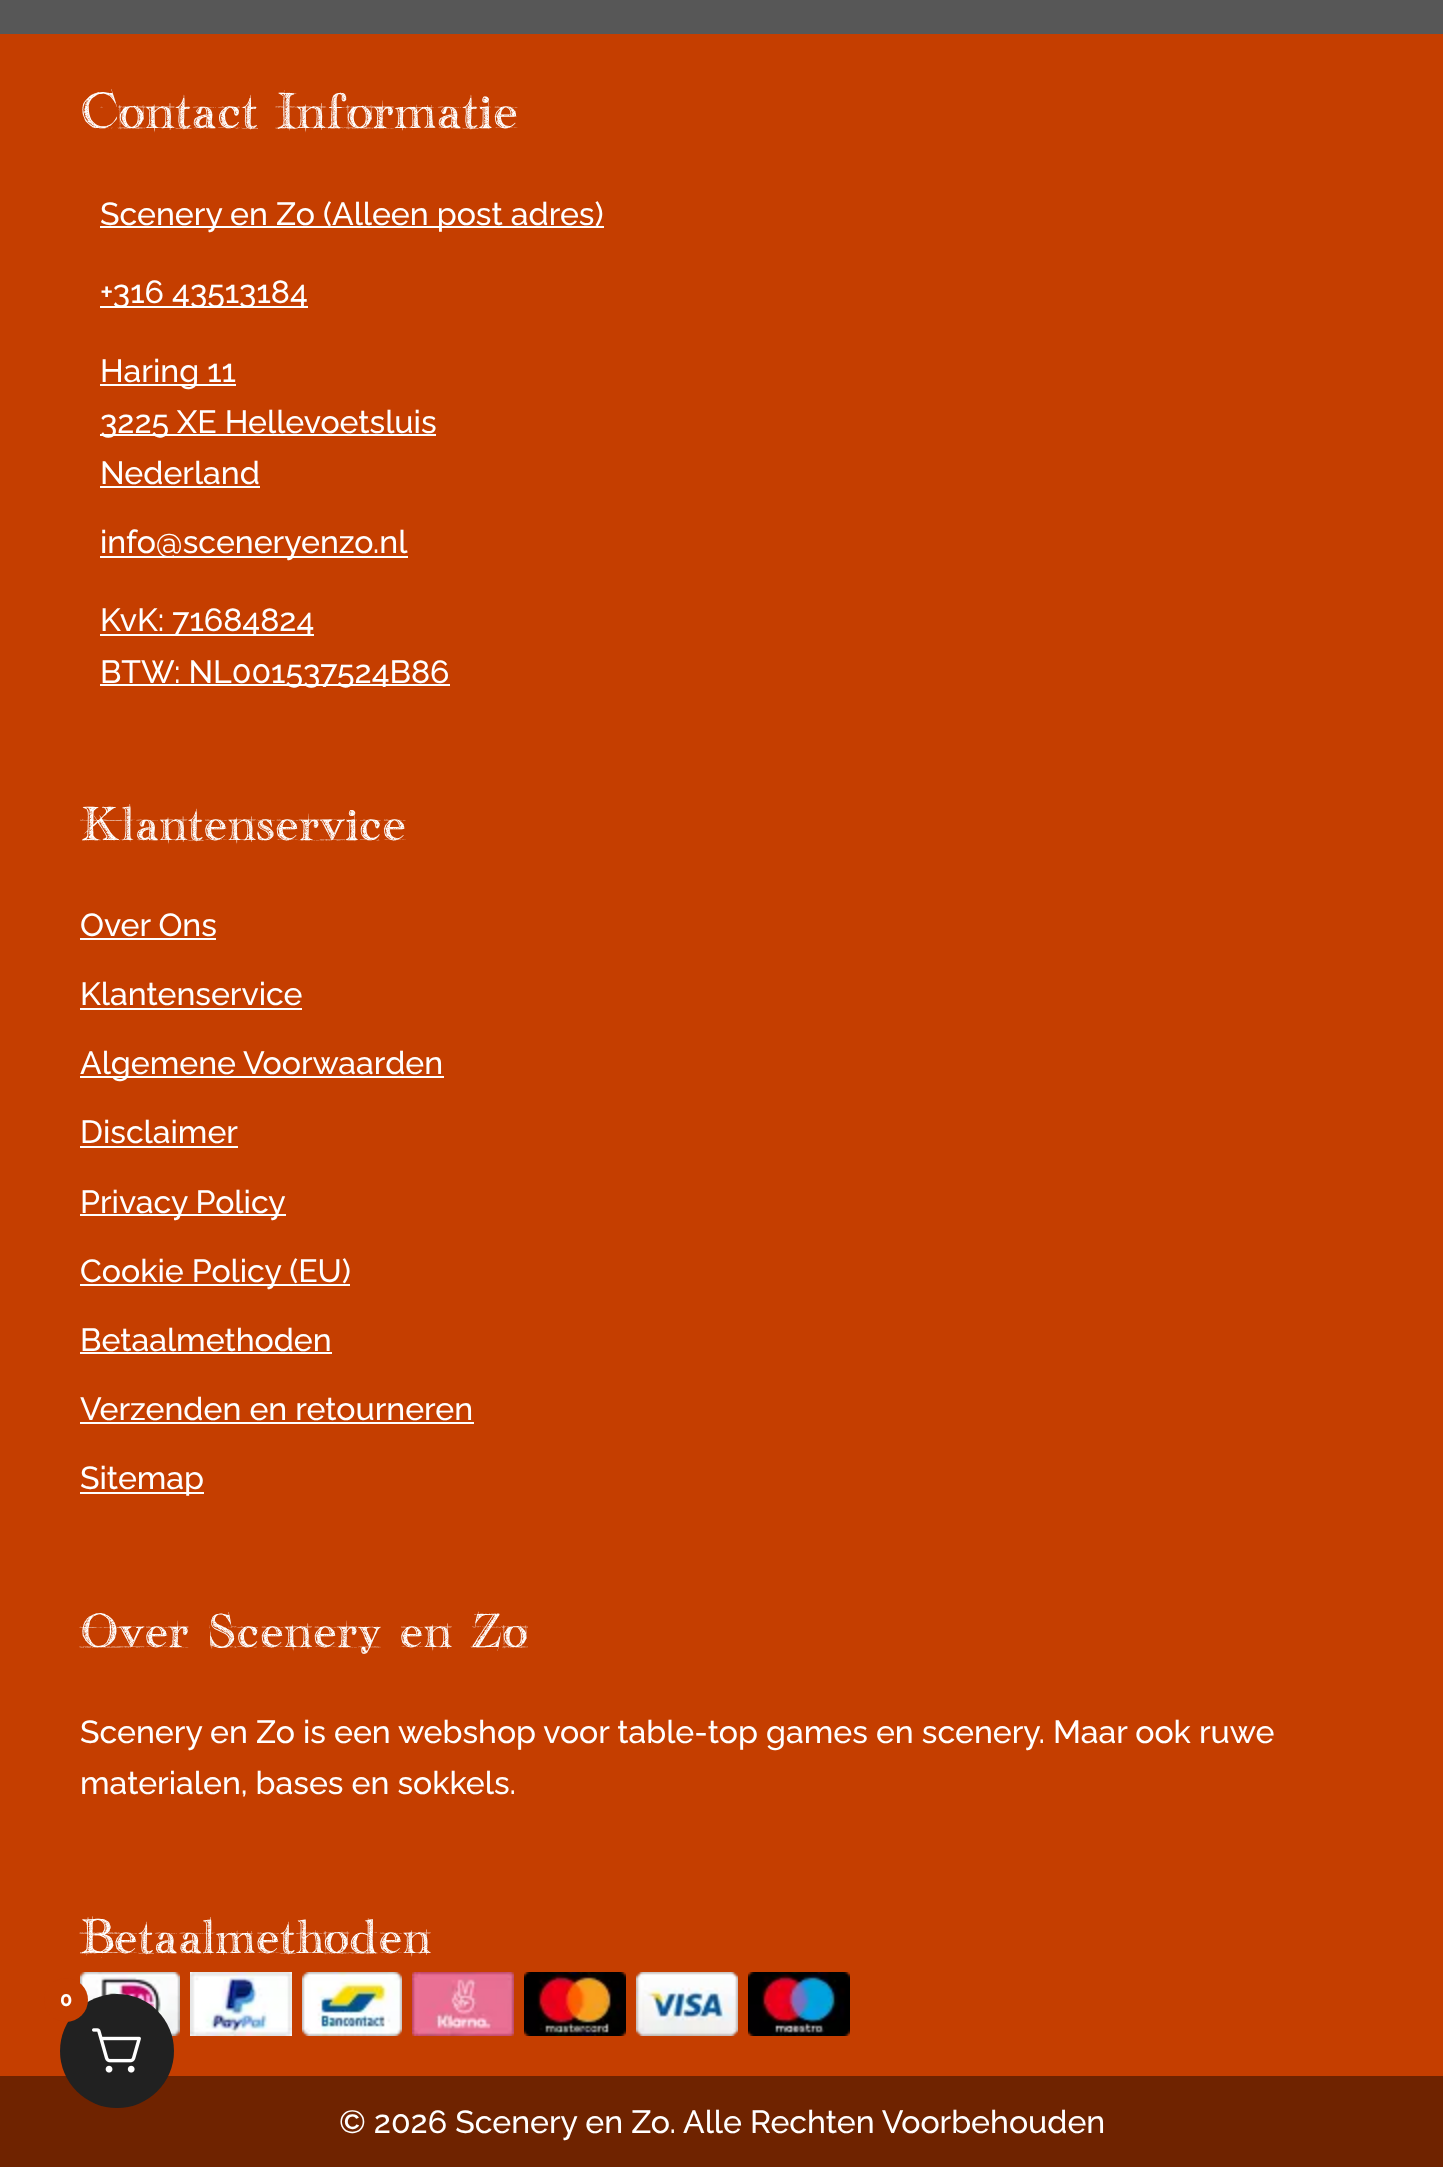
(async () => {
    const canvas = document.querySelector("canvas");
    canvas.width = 1443;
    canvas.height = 2167;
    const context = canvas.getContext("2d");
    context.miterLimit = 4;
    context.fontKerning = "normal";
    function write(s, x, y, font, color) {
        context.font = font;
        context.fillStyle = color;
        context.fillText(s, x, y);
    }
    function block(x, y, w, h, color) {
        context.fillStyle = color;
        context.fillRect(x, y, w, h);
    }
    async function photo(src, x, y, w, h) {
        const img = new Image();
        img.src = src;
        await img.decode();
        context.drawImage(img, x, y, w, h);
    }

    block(0, 0, 1443, 2167, "rgb(87, 87, 87)");
    block(0, 34, 1443, 2042, "rgb(197, 62, 0)");
    await photo("media/2.png", 80, 1972, 100, 64);
    block(0, 2076, 1443, 91, "rgb(111, 35, 0)");
    context.fillStyle = "rgb(33, 33, 33)";
    context.beginPath();
    context.arc(117, 2051, 57, 0, Math.PI * 2);
    context.fill();
    await photo("media/1.png", 92, 2028, 49, 45);
    context.fillStyle = "rgb(197, 62, 0)";
    context.beginPath();
    context.arc(66, 2000, 22, 0, Math.PI * 2);
    context.fill();
    write("0", 60, 2006, "bold 20px Raleway", "rgb(255, 255, 255)");
    write("Contact Informatie", 80, 128, "42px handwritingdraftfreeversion", "rgb(255, 255, 255)");
    block(100, 226, 504, 2, "rgb(255, 255, 255)");
    write("Scenery en Zo (Alleen post adres)", 100, 225, "500 32px Raleway", "rgb(255, 255, 255)");
    block(100, 306, 208, 2, "rgb(255, 255, 255)");
    write("+316 43513184", 100, 303, "500 32px Raleway", "rgb(255, 255, 255)");
    block(100, 384, 136, 2, "rgb(255, 255, 255)");
    write("Haring 11", 100, 382, "500 32px Raleway", "rgb(255, 255, 255)");
    block(100, 434, 336, 2, "rgb(255, 255, 255)");
    write("3225 XE Hellevoetsluis", 100, 433, "500 32px Raleway", "rgb(255, 255, 255)");
    write("Nederland", 100, 484, "500 32px Raleway", "rgb(255, 255, 255)");
    block(100, 486, 160, 2, "rgb(255, 255, 255)");
    block(100, 556, 308, 2, "rgb(255, 255, 255)");
    write("info@sceneryenzo.nl", 100, 553, "500 32px Raleway", "rgb(255, 255, 255)");
    block(100, 634, 214, 2, "rgb(255, 255, 255)");
    write("KvK: 71684824", 100, 631, "500 32px Raleway", "rgb(255, 255, 255)");
    block(100, 684, 350, 2, "rgb(255, 255, 255)");
    write("BTW: NL001537524B86", 100, 683, "500 32px Raleway", "rgb(255, 255, 255)");
    write("Klantenservice", 80, 840, "40px handwritingdraftfreeversion", "rgb(255, 255, 255)");
    write("Over Ons", 80, 936, "500 32px Raleway", "rgb(255, 255, 255)");
    block(80, 938, 136, 2, "rgb(255, 255, 255)");
    write("Klantenservice", 80, 1005, "500 32px Raleway", "rgb(255, 255, 255)");
    block(80, 1008, 222, 2, "rgb(255, 255, 255)");
    block(80, 1076, 364, 2, "rgb(255, 255, 255)");
    write("Algemene Voorwaarden", 80, 1074, "500 32px Raleway", "rgb(255, 255, 255)");
    write("Disclaimer", 80, 1143, "500 32px Raleway", "rgb(255, 255, 255)");
    block(80, 1146, 158, 2, "rgb(255, 255, 255)");
    block(80, 1214, 206, 2, "rgb(255, 255, 255)");
    write("Privacy Policy", 80, 1213, "500 32px Raleway", "rgb(255, 255, 255)");
    block(80, 1284, 270, 2, "rgb(255, 255, 255)");
    write("Cookie Policy (EU)", 80, 1282, "500 32px Raleway", "rgb(255, 255, 255)");
    write("Betaalmethoden", 80, 1351, "500 32px Raleway", "rgb(255, 255, 255)");
    block(80, 1352, 252, 2, "rgb(255, 255, 255)");
    write("Verzenden en retourneren", 80, 1420, "500 32px Raleway", "rgb(255, 255, 255)");
    block(80, 1422, 394, 2, "rgb(255, 255, 255)");
    block(80, 1492, 124, 2, "rgb(255, 255, 255)");
    write("Sitemap", 80, 1489, "500 32px Raleway", "rgb(255, 255, 255)");
    write("Over Scenery en Zo", 80, 1647, "40px handwritingdraftfreeversion", "rgb(255, 255, 255)");
    write("Scenery en Zo is een webshop voor table-top games en scenery. Maar ook ruwe", 80, 1743, "500 32px Raleway", "rgb(255, 255, 255)");
    write("materialen, bases en sokkels.", 80, 1794, "500 32px Raleway", "rgb(255, 255, 255)");
    write("Betaalmethoden", 80, 1953, "40px handwritingdraftfreeversion", "rgb(255, 255, 255)");
    await photo("media/3.png", 190, 1972, 102, 64);
    await photo("media/4.png", 302, 1972, 100, 64);
    await photo("media/5.png", 412, 1972, 102, 64);
    await photo("media/6.png", 524, 1972, 102, 64);
    await photo("media/7.png", 636, 1972, 102, 64);
    await photo("media/8.png", 748, 1972, 102, 64);
    write("© 2026 Scenery en Zo. Alle Rechten Voorbehouden", 339, 2133, "500 32px Raleway", "rgb(255, 255, 255)");
})();
